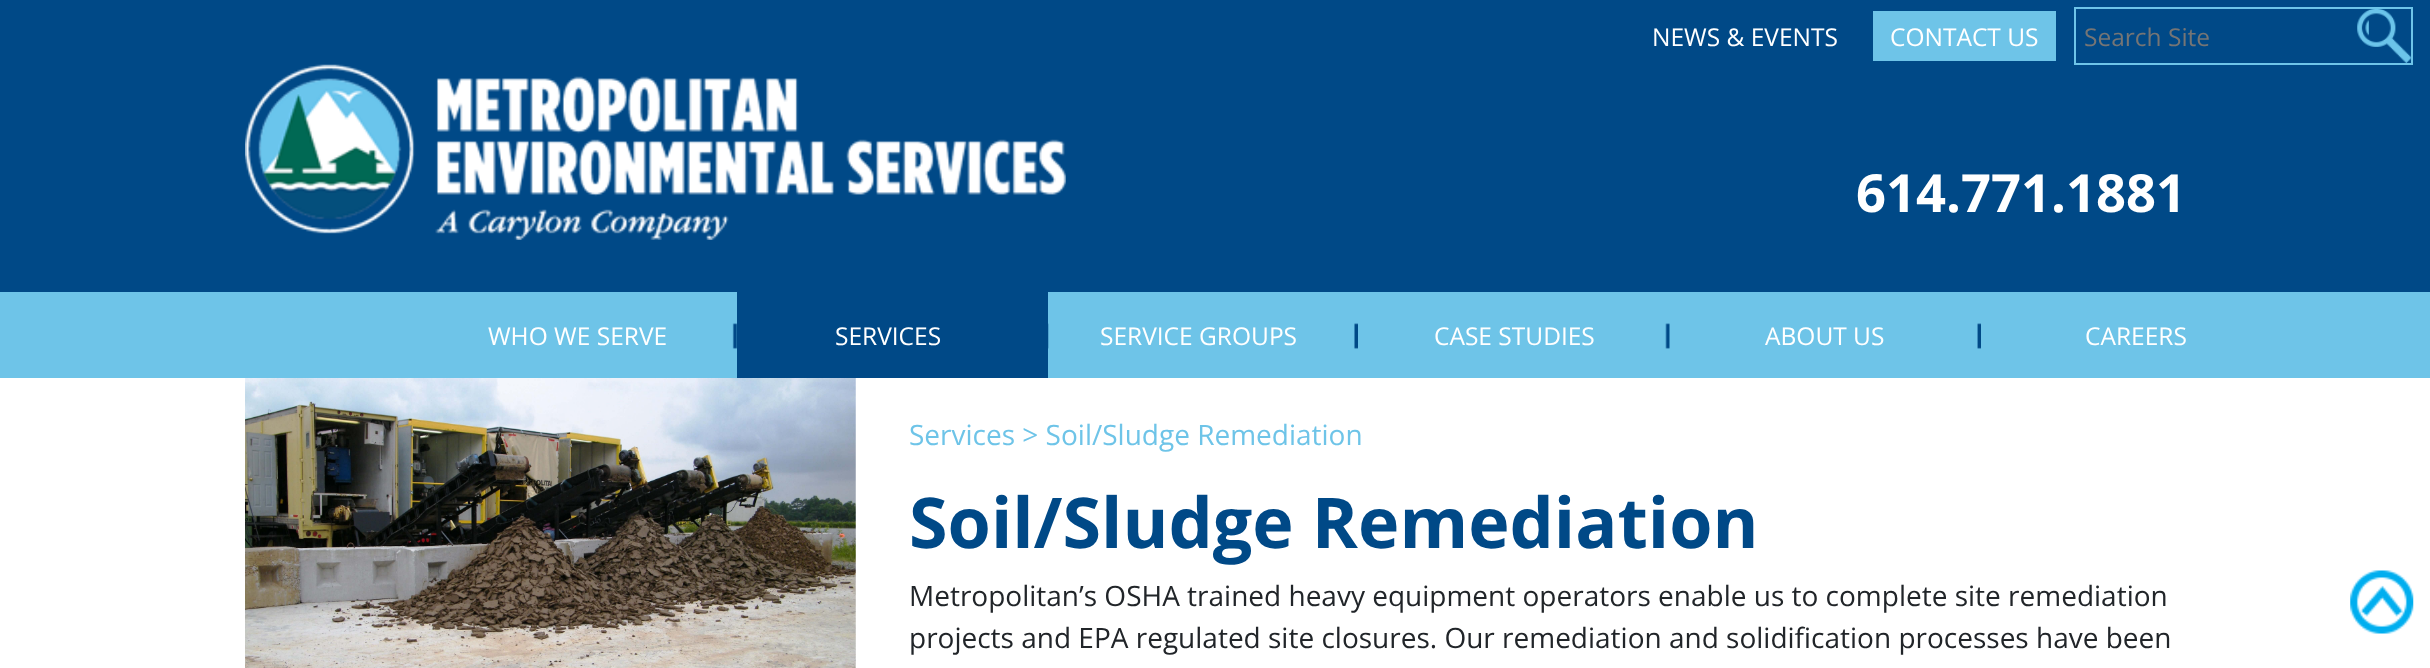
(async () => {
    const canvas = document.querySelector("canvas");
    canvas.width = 2430;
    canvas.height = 668;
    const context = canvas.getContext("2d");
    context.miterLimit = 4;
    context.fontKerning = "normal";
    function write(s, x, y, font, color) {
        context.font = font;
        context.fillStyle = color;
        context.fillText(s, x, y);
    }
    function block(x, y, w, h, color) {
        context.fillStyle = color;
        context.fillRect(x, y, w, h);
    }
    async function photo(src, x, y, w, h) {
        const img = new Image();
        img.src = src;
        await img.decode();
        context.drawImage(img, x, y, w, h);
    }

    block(0, 0, 2430, 668, "rgb(255, 255, 255)");
    block(0, 0, 2430, 292, "rgb(0, 73, 135)");
    write("NEWS & EVENTS", 1652, 46, "24.5px Open Sans", "rgb(255, 255, 255)");
    block(1873, 11, 183, 50, "rgb(110, 196, 232)");
    write("CONTACT US", 1890, 46, "24.5px Open Sans", "rgb(255, 255, 255)");
    await photo("media/1.png", 2357, 9, 54, 54);
    context.strokeStyle = "rgb(110, 196, 232)";
    context.lineWidth = 2;
    context.strokeRect(2075, 8, 337, 56);
    write("Search Site", 2084, 46, "24.5px Open Sans", "rgb(117, 117, 117)");
    await photo("media/2.png", 245, 64, 821, 176);
    write("614.771.1881", 1856, 212, "bold 52.5px Open Sans", "rgb(255, 255, 255)");
    block(0, 292, 2430, 86, "rgb(110, 196, 232)");
    await photo("media/3.png", 732, 323, 5, 26);
    write("WHO WE SERVE", 488, 345, "24.5px Open Sans", "rgb(255, 255, 255)");
    block(737, 292, 311, 86, "rgb(0, 73, 135)");
    await photo("media/4.png", 1048, 323, 1, 26);
    write("SERVICES", 835, 345, "24.5px Open Sans", "rgb(255, 255, 255)");
    await photo("media/5.png", 1354, 323, 4, 26);
    write("SERVICE GROUPS", 1100, 345, "24.5px Open Sans", "rgb(255, 255, 255)");
    await photo("media/6.png", 1665, 323, 5, 26);
    write("CASE STUDIES", 1434, 345, "24.5px Open Sans", "rgb(255, 255, 255)");
    await photo("media/7.png", 1977, 323, 4, 26);
    write("ABOUT US", 1765, 345, "24.5px Open Sans", "rgb(255, 255, 255)");
    write("CAREERS", 2085, 345, "24.5px Open Sans", "rgb(255, 255, 255)");
    await photo("media/8.png", 245, 378, 611, 290);
    write("Services > Soil/Sludge Remediation", 909, 445, "28px Open Sans", "rgb(110, 196, 232)");
    write("Soil/Sludge Remediation", 909, 548, "bold 70px Open Sans", "rgb(0, 73, 135)");
    write("Metropolitan’s OSHA trained heavy equipment operators enable us to complete site remediation", 909, 606, "28px Open Sans", "rgb(33, 37, 41)");
    write("projects and EPA regulated site closures. Our remediation and solidification processes have been", 909, 648, "28px Open Sans", "rgb(33, 37, 41)");
    await photo("media/9.png", 2350, 570, 64, 64);
})();
